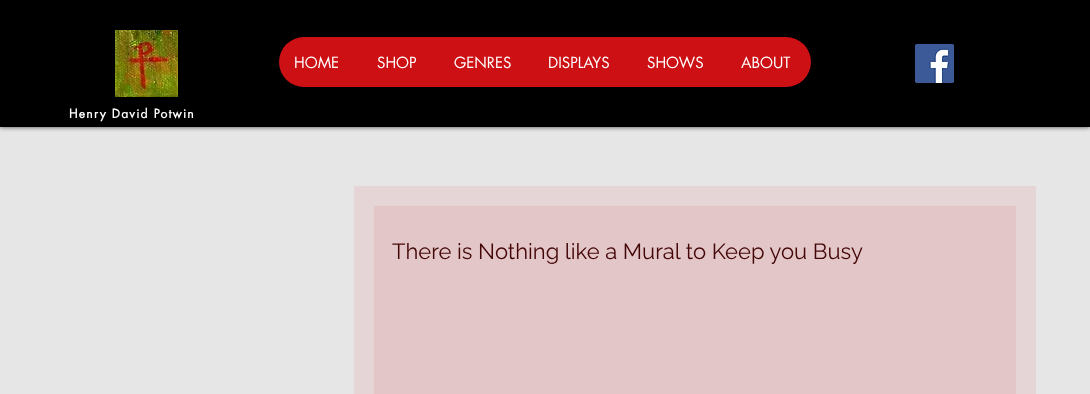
(async () => {
    const canvas = document.querySelector("canvas");
    canvas.width = 1090;
    canvas.height = 394;
    const context = canvas.getContext("2d");
    context.miterLimit = 4;
    context.fontKerning = "normal";
    function write(s, x, y, font, color) {
        context.font = font;
        context.fillStyle = color;
        context.fillText(s, x, y);
    }
    function block(x, y, w, h, color) {
        context.fillStyle = color;
        context.fillRect(x, y, w, h);
    }
    function card(x, y, w, h, r, color) {
        context.fillStyle = color;
        context.beginPath();
        context.roundRect(x, y, w, h, r);
        context.fill();
    }
    async function photo(src, x, y, w, h) {
        const img = new Image();
        img.src = src;
        await img.decode();
        context.drawImage(img, x, y, w, h);
    }

    block(0, 0, 1090, 394, "rgb(230, 230, 230)");
    context.fillStyle = "rgba(0, 0, 0, 0.7)";
    context.filter = "blur(2.5px)";
    context.beginPath();
    context.rect(0, 0, 1090, 127);
    context.fill();
    context.filter = "none";
    block(0, 0, 1090, 127, "rgb(0, 0, 0)");
    await photo("media/1.png", 115, 30, 63, 67);
    card(279, 37, 532, 50, 25, "rgb(204, 16, 19)");
    write("HOME", 294, 68, "15px futura", "rgb(255, 255, 255)");
    write("SHOP", 377, 68, "15px futura", "rgb(255, 255, 255)");
    write("GENRES", 454, 68, "15px futura", "rgb(255, 255, 255)");
    write("DISPLAYS", 548, 68, "15px futura", "rgb(255, 255, 255)");
    write("SHOWS", 647, 68, "15px futura", "rgb(255, 255, 255)");
    write("ABOUT", 741, 68, "15px futura", "rgb(255, 255, 255)");
    await photo("media/2.png", 915, 44, 39, 39);
    context.letterSpacing = "1.25px";
    write("Henry David Potwin", 69, 118, "bold 12px futura", "rgb(255, 255, 255)");
    block(354, 186, 682, 208, "rgb(229, 213, 214)");
    block(374, 206, 642, 188, "rgb(227, 199, 200)");
    context.letterSpacing = "0px";
    write("There is Nothing like a Mural to Keep you Busy", 392, 259, "22px Raleway", "rgb(68, 5, 6)");
})();
